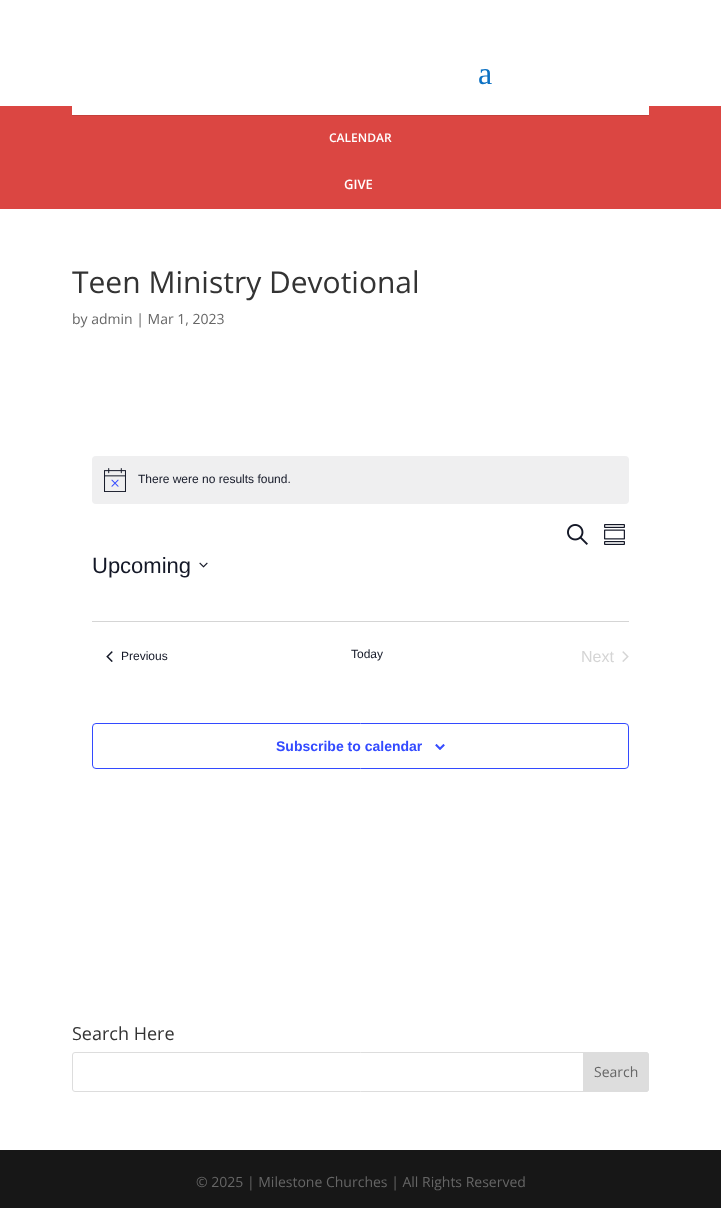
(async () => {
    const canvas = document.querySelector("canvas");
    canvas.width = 721;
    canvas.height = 1208;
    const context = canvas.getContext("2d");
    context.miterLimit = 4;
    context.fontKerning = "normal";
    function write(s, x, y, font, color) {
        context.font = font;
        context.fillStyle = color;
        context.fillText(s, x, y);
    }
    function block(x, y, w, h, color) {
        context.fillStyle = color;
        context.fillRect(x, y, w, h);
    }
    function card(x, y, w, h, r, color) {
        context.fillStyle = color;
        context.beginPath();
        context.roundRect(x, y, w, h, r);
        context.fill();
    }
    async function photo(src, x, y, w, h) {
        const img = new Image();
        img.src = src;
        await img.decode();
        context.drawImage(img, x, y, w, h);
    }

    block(0, 0, 721, 1208, "rgb(255, 255, 255)");
    block(0, 106, 721, 103, "rgb(219, 70, 66)");
    block(72, 115, 577, 1, "rgb(197, 63, 59)");
    block(72, 106, 577, 9, "rgb(255, 255, 255)");
    write("a", 478, 84, "32px Liberation Serif", "rgb(12, 113, 195)");
    write("CALENDAR", 329, 142, "600 12px Open Sans", "rgb(255, 255, 255)");
    write("GIVE", 344, 189, "600 13px Open Sans", "rgb(255, 255, 255)");
    write("Teen Ministry Devotional", 72, 293, "30px Open Sans", "rgb(51, 51, 51)");
    write("by admin | Mar 1, 2023", 72, 324, "14px Open Sans", "rgb(102, 102, 102)");
    card(92, 456, 537, 48, 4, "rgb(239, 239, 240)");
    await photo("media/1.png", 104, 468, 22, 24);
    write("There were no results found.", 138, 483, "12px Liberation Sans", "rgb(20, 24, 39)");
    await photo("media/2.png", 567, 524, 21, 21);
    await photo("media/3.png", 604, 524, 21, 21);
    write("Upcoming", 92, 573, "22px Liberation Sans", "rgb(20, 24, 39)");
    await photo("media/4.png", 199, 562, 9, 6);
    block(92, 621, 537, 1, "rgb(213, 213, 213)");
    await photo("media/5.png", 106, 651, 7, 11);
    write("Previous", 121, 660, "12px Liberation Sans", "rgb(20, 24, 39)");
    write("Today", 351, 658, "12px Liberation Sans", "rgb(20, 24, 39)");
    write("Next", 581, 662, "16px Liberation Sans", "rgb(213, 213, 213)");
    await photo("media/6.png", 622, 651, 7, 11);
    context.beginPath();
    context.roundRect(92.5, 723.5, 536, 45, 3.5);
    context.strokeStyle = "rgb(51, 74, 255)";
    context.stroke();
    write("Subscribe to calendar", 276, 751, "bold 14px Liberation Sans", "rgb(51, 74, 255)");
    await photo("media/7.png", 435, 744, 10, 6);
    write("Search Here", 72, 1040, "18px Open Sans", "rgb(51, 51, 51)");
    context.beginPath();
    context.roundRect(72.5, 1052.5, 576, 39, 2.5);
    context.strokeStyle = "rgb(221, 221, 221)";
    context.stroke();
    context.fillStyle = "rgb(221, 221, 221)";
    context.beginPath();
    context.roundRect(583.5, 1052.5, 65, 39, [0, 2.5, 2.5, 0]);
    context.fill();
    context.stroke();
    write("Search", 594, 1077, "14px Open Sans", "rgb(102, 102, 102)");
    block(0, 1150, 721, 58, "rgb(23, 23, 23)");
    write("© 2025 | Milestone Churches | All Rights Reserved", 196, 1187, "14px Open Sans", "rgb(102, 102, 102)");
})();
